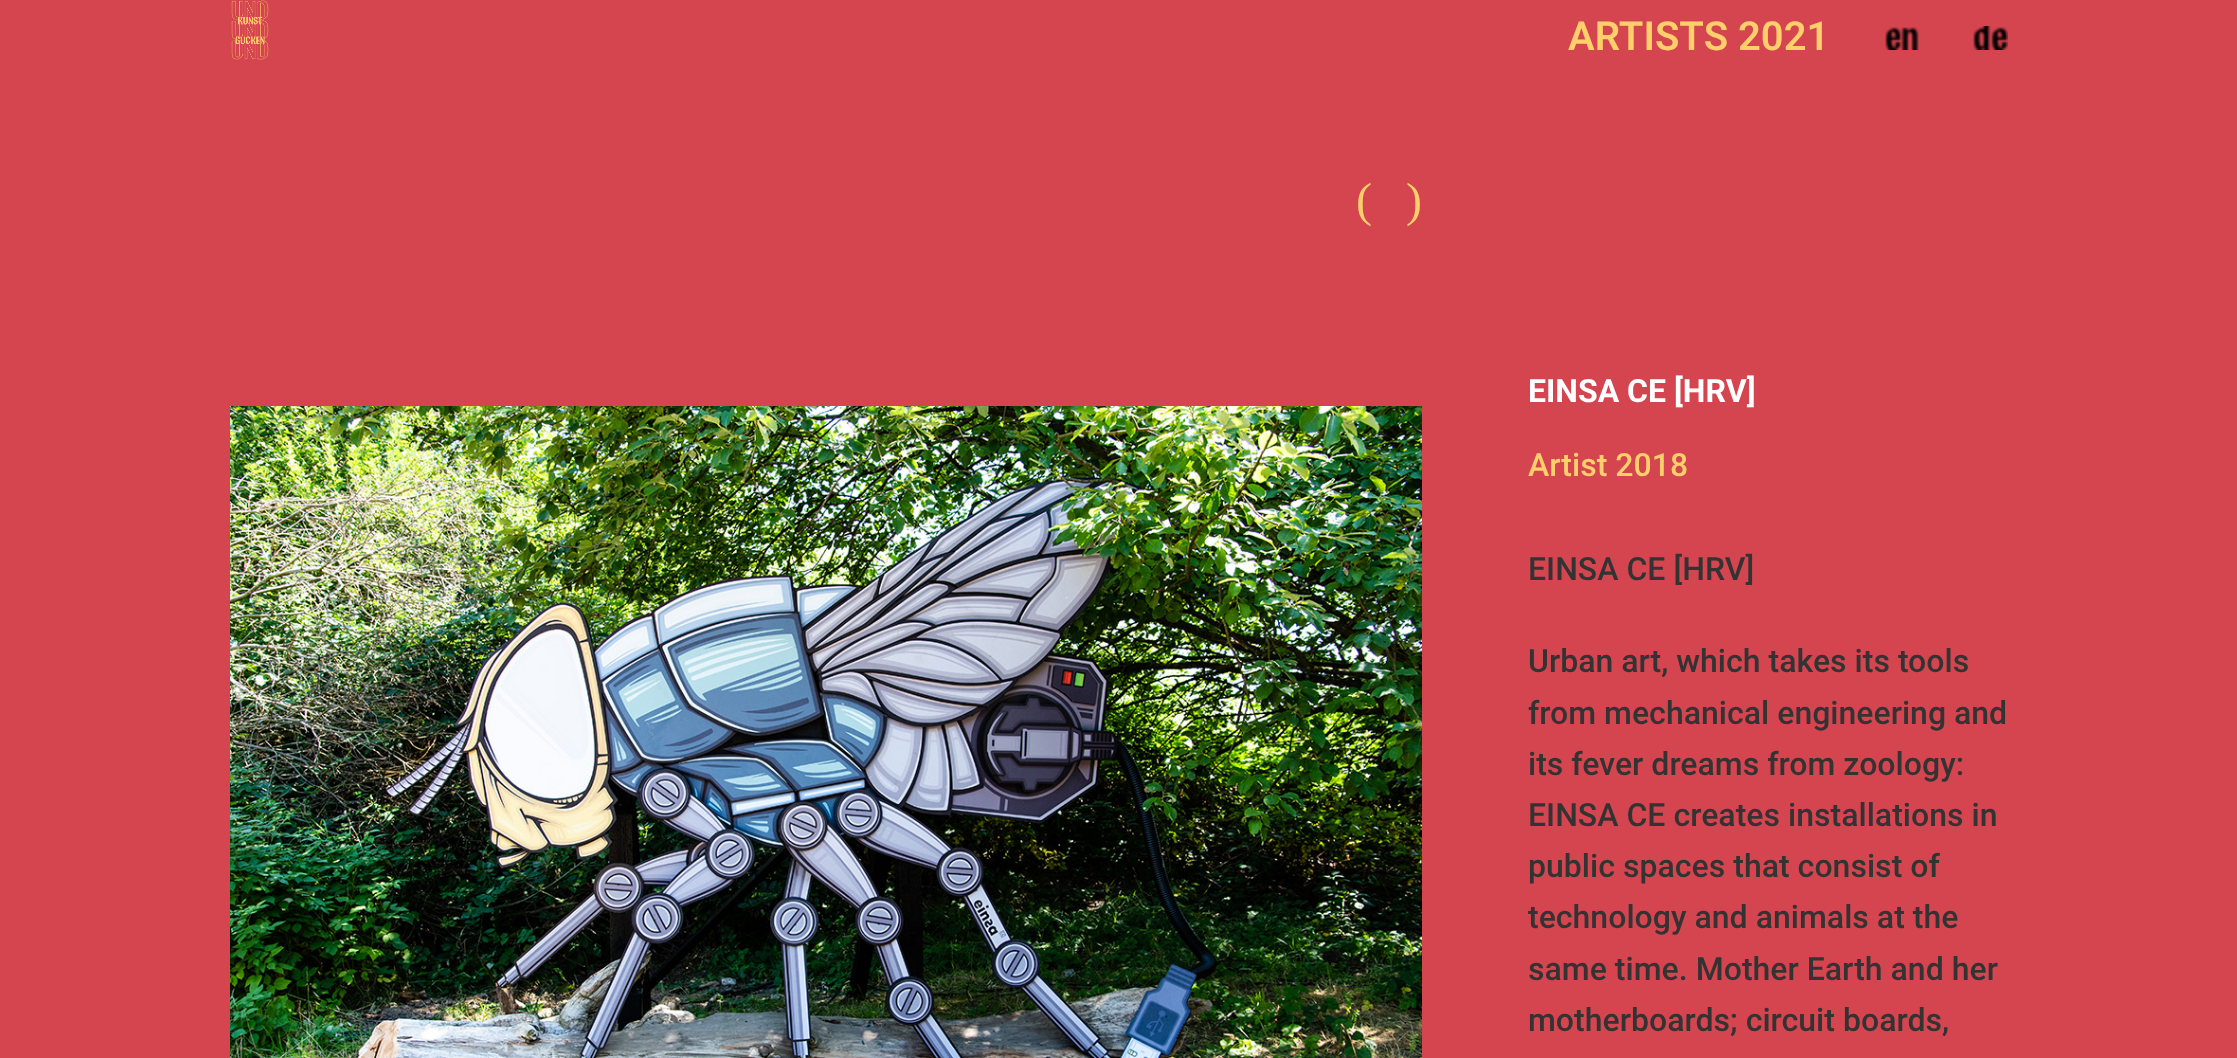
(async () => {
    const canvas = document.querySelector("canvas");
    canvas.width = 2237;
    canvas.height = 1058;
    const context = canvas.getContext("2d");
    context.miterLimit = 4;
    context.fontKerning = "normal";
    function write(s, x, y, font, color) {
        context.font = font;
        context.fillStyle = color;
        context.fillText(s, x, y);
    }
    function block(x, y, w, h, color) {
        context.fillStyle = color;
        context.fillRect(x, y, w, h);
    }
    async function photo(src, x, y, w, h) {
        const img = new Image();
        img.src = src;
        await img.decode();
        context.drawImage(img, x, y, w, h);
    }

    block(0, 0, 2237, 1058, "rgb(213, 69, 80)");
    await photo("media/1.png", 231, 0, 38, 60);
    write("ARTISTS 2021", 1568, 50, "600 40px Roboto", "rgb(254, 207, 107)");
    await photo("media/2.png", 1885, 27, 34, 23);
    await photo("media/3.png", 1973, 26, 35, 24);
    write("(", 1356, 216, "48px Liberation Serif", "rgb(254, 207, 107)");
    write(")", 1406, 216, "48px Liberation Serif", "rgb(254, 207, 107)");
    await photo("media/4.png", 230, 406, 1192, 652);
    write("EINSA CE [HRV]", 1528, 402, "bold 32px Roboto", "rgb(255, 255, 255)");
    write("Artist 2018", 1528, 476, "500 32px Roboto", "rgb(254, 207, 107)");
    write("EINSA CE [HRV]", 1528, 580, "500 32px Roboto", "rgb(51, 51, 51)");
    write("Urban art, which takes its tools", 1528, 672, "500 32px Roboto", "rgb(51, 51, 51)");
    write("from mechanical engineering and", 1528, 724, "500 32px Roboto", "rgb(51, 51, 51)");
    write("its fever dreams from zoology:", 1528, 775, "500 32px Roboto", "rgb(51, 51, 51)");
    write("EINSA CE creates installations in", 1528, 826, "500 32px Roboto", "rgb(51, 51, 51)");
    write("public spaces that consist of", 1528, 877, "500 32px Roboto", "rgb(51, 51, 51)");
    write("technology and animals at the", 1528, 928, "500 32px Roboto", "rgb(51, 51, 51)");
    write("same time. Mother Earth and her", 1528, 980, "500 32px Roboto", "rgb(51, 51, 51)");
    write("motherboards; circuit boards,", 1528, 1031, "500 32px Roboto", "rgb(51, 51, 51)");
})();
